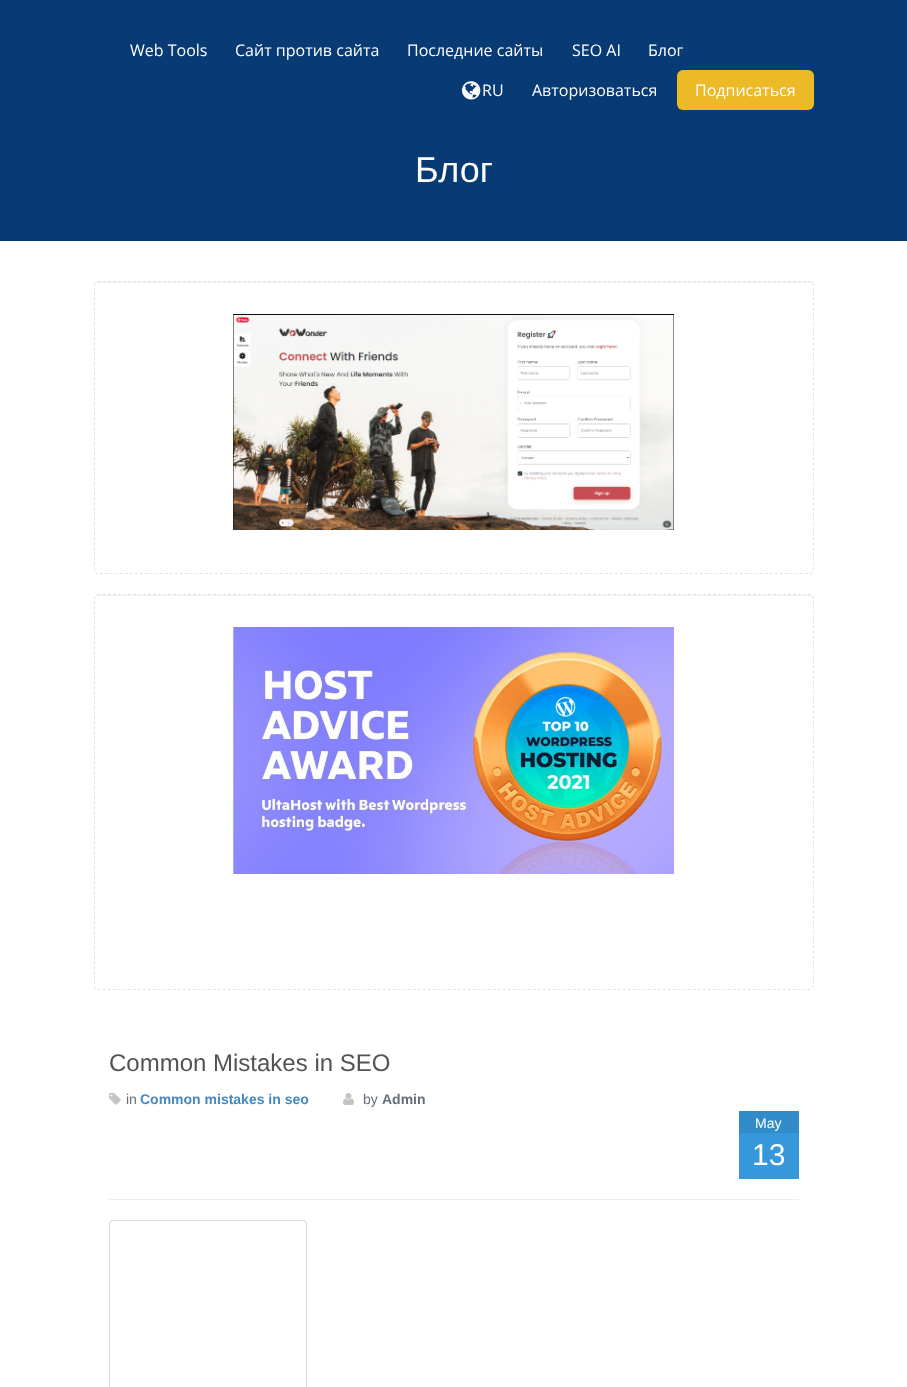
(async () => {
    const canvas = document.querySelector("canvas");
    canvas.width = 907;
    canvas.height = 1387;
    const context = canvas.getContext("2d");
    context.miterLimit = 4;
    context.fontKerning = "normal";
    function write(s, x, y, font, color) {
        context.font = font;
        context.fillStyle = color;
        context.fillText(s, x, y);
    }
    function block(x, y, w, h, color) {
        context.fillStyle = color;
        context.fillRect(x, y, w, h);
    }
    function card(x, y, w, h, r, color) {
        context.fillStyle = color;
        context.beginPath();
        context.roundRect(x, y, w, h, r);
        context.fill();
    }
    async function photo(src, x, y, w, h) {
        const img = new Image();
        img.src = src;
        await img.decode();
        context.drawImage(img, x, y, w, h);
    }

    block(0, 0, 907, 1387, "rgb(255, 255, 255)");
    block(0, 0, 907, 241, "rgb(8, 58, 116)");
    write("Web Tools", 130, 56, "16px Open Sans", "rgb(255, 255, 255)");
    write("Сайт против сайта", 235, 56, "16px Open Sans", "rgb(255, 255, 255)");
    write("Последние сайты", 407, 56, "16px Open Sans", "rgb(255, 255, 255)");
    write("SEO AI", 572, 56, "16px Open Sans", "rgb(255, 255, 255)");
    write("Блог", 648, 56, "16px Open Sans", "rgb(255, 255, 255)");
    await photo("media/1.png", 462, 81, 19, 19);
    write("RU", 482, 96, "16px Open Sans", "rgb(255, 255, 255)");
    write("Авторизоваться", 532, 96, "16px Open Sans", "rgb(255, 255, 255)");
    card(677, 70, 137, 40, 6, "rgb(236, 186, 38)");
    write("Подписаться", 695, 96, "16px Open Sans", "rgb(255, 255, 255)");
    write("Блог", 415, 182, "36px Liberation Sans", "rgb(255, 255, 255)");
    context.fillStyle = "rgb(242, 242, 242)";
    context.beginPath();
    context.moveTo(98, 283);
    context.lineTo(810, 283);
    context.bezierCurveTo(812, 283, 813, 284, 813, 286);
    context.bezierCurveTo(813, 284, 812, 282, 810, 282);
    context.lineTo(98, 282);
    context.bezierCurveTo(96, 282, 95, 284, 95, 286);
    context.bezierCurveTo(95, 284, 96, 283, 98, 283);
    context.closePath();
    context.fill();
    context.beginPath();
    context.moveTo(98, 281.5);
    context.lineTo(810, 281.5);
    context.bezierCurveTo(812, 281.5, 813.5, 283, 813.5, 285);
    context.lineTo(813.5, 570);
    context.bezierCurveTo(813.5, 572, 812, 573.5, 810, 573.5);
    context.lineTo(98, 573.5);
    context.bezierCurveTo(96, 573.5, 94.5, 572, 94.5, 570);
    context.lineTo(94.5, 285);
    context.bezierCurveTo(94.5, 283, 96, 281.5, 98, 281.5);
    context.closePath();
    context.strokeStyle = "rgb(227, 227, 227)";
    context.setLineDash([3, 2]);
    context.stroke();
    await photo("media/2.png", 233, 314, 441, 216);
    context.beginPath();
    context.moveTo(98, 596);
    context.lineTo(810, 596);
    context.bezierCurveTo(812, 596, 813, 597, 813, 599);
    context.bezierCurveTo(813, 597, 812, 595, 810, 595);
    context.lineTo(98, 595);
    context.bezierCurveTo(96, 595, 95, 597, 95, 599);
    context.bezierCurveTo(95, 597, 96, 596, 98, 596);
    context.closePath();
    context.fill();
    context.beginPath();
    context.moveTo(98, 594.5);
    context.lineTo(810, 594.5);
    context.bezierCurveTo(812, 594.5, 813.5, 596, 813.5, 598);
    context.lineTo(813.5, 986);
    context.bezierCurveTo(813.5, 988, 812, 989.5, 810, 989.5);
    context.lineTo(98, 989.5);
    context.bezierCurveTo(96, 989.5, 94.5, 988, 94.5, 986);
    context.lineTo(94.5, 598);
    context.bezierCurveTo(94.5, 596, 96, 594.5, 98, 594.5);
    context.closePath();
    context.stroke();
    await photo("media/3.png", 233, 627, 441, 247);
    write("Common Mistakes in SEO", 109, 1071, "24px Liberation Sans", "rgb(83, 83, 83)");
    await photo("media/4.png", 109, 1093, 12, 12);
    write("in", 126, 1104, "14px Liberation Sans", "rgb(101, 110, 121)");
    write("Common mistakes in seo", 140, 1104, "bold 14px Liberation Sans", "rgb(71, 135, 190)");
    await photo("media/5.png", 343, 1093, 11, 12);
    write("by", 363, 1104, "14px Liberation Sans", "rgb(101, 110, 121)");
    write("Admin", 382, 1104, "bold 14px Liberation Sans", "rgb(101, 110, 121)");
    block(739, 1111, 60, 22, "rgb(48, 139, 200)");
    write("May", 755, 1128, "14px Liberation Sans", "rgb(255, 255, 255)");
    block(739, 1133, 60, 46, "rgb(52, 152, 219)");
    write("13", 752, 1165, "30px Liberation Sans", "rgb(255, 255, 255)");
    block(109, 1199, 690, 1, "rgb(238, 238, 238)");
    context.beginPath();
    context.roundRect(109.5, 1220.5, 197, 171, 3.5);
    context.strokeStyle = "rgb(221, 221, 221)";
    context.setLineDash([]);
    context.stroke();
})();
